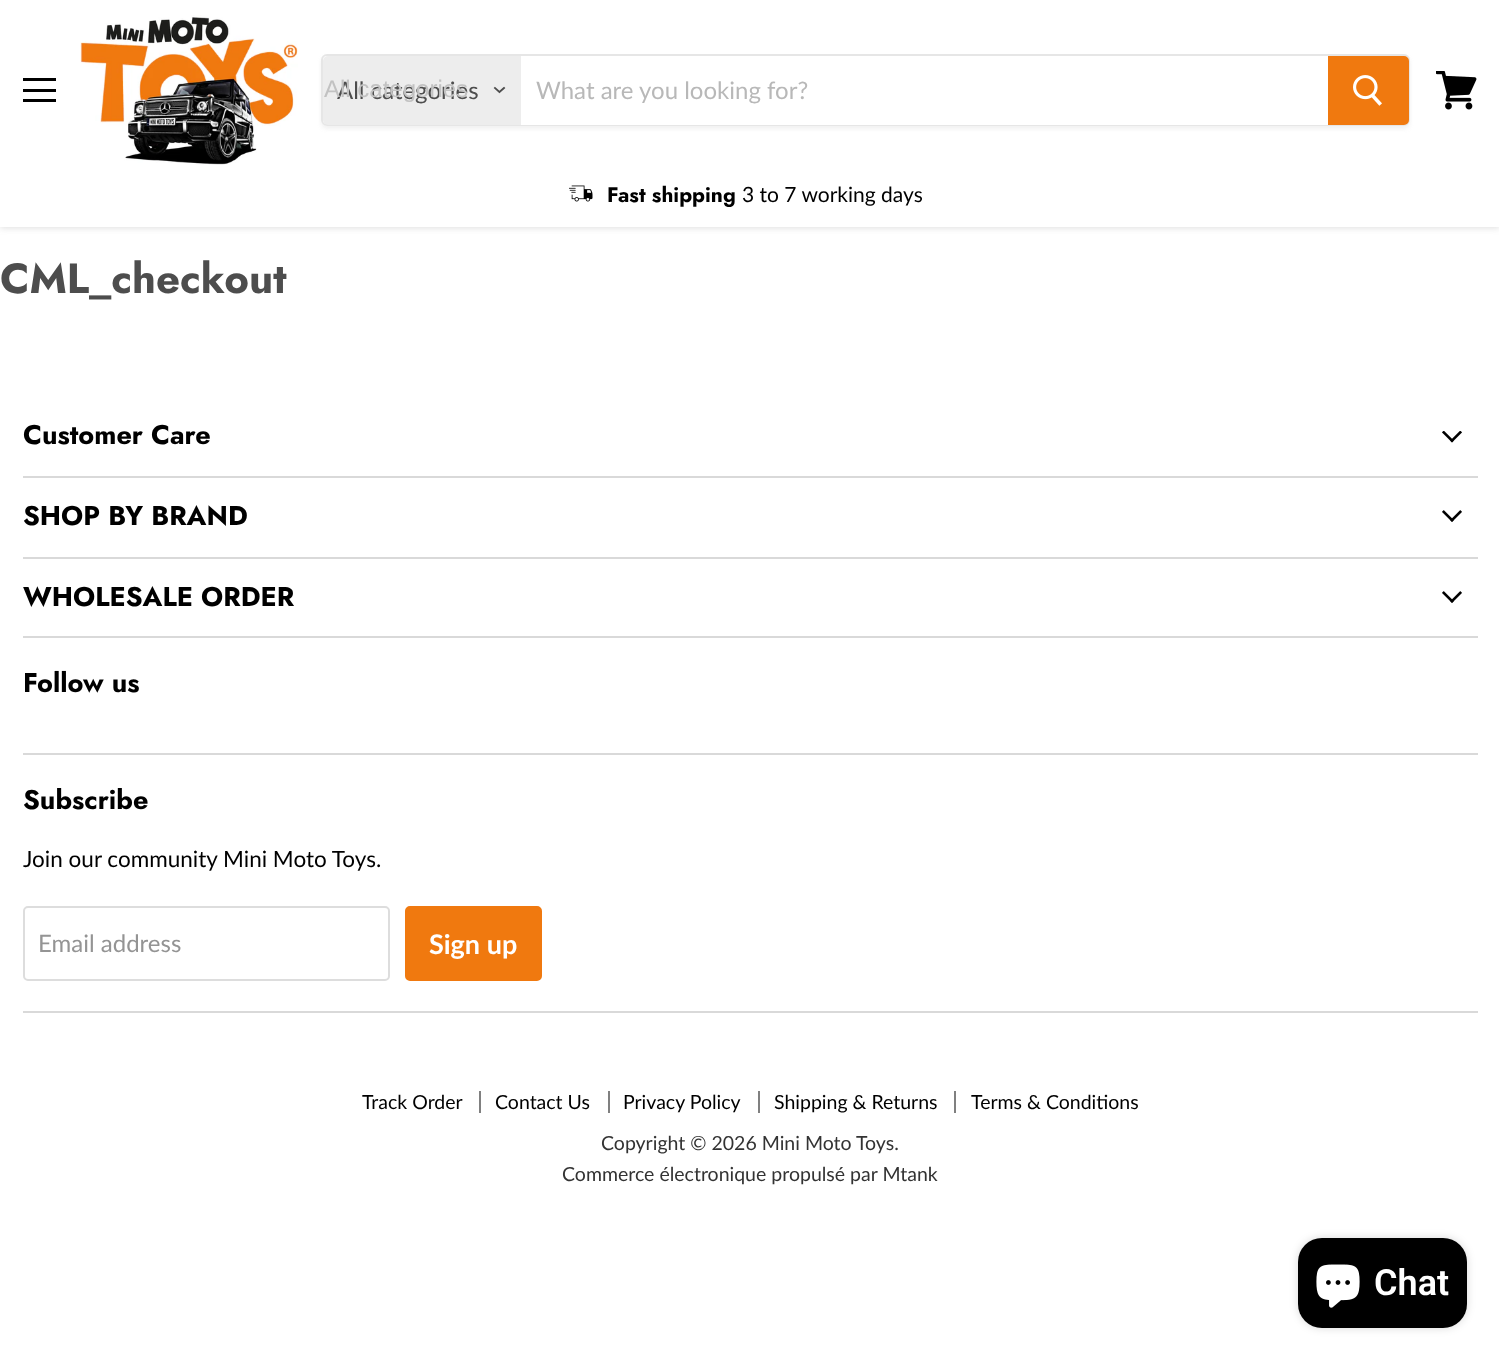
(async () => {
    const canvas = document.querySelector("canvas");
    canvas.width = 1499;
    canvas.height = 1358;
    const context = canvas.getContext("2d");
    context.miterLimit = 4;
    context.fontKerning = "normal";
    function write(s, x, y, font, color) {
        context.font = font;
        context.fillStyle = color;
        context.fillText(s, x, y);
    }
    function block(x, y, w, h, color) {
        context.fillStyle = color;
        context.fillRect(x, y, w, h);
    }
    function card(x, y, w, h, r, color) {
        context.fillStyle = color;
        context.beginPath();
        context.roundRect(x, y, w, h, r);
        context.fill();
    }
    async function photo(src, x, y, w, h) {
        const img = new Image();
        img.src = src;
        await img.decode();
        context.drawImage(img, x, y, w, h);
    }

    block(0, 0, 1499, 1358, "rgb(255, 255, 255)");
    context.fillStyle = "rgba(128, 128, 128, 0.25)";
    context.filter = "blur(3px)";
    context.beginPath();
    context.rect(0, 2, 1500, 226);
    context.fill();
    context.filter = "none";
    block(0, 0, 1499, 227, "rgb(255, 255, 255)");
    block(23, 78, 33, 3, "rgb(0, 0, 0)");
    block(23, 89, 33, 3, "rgb(0, 0, 0)");
    block(23, 99, 33, 3, "rgb(0, 0, 0)");
    await photo("media/1.png", 80, 15, 218, 150);
    context.save();
    context.beginPath();
    context.moveTo(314, 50);
    context.lineTo(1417, 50);
    context.lineTo(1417, 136);
    context.lineTo(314, 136);
    context.closePath();
    context.moveTo(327, 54);
    context.lineTo(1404, 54);
    context.bezierCurveTo(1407.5, 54, 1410, 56.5, 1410, 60);
    context.lineTo(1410, 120);
    context.bezierCurveTo(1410, 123.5, 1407.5, 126, 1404, 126);
    context.lineTo(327, 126);
    context.bezierCurveTo(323.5, 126, 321, 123.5, 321, 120);
    context.lineTo(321, 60);
    context.bezierCurveTo(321, 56.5, 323.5, 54, 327, 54);
    context.closePath();
    context.clip("evenodd");
    context.fillStyle = "rgba(128, 128, 128, 0.11)";
    context.filter = "blur(2px)";
    context.beginPath();
    context.roundRect(321, 57, 1089, 72, 6);
    context.fill();
    context.filter = "none";
    context.restore();
    context.beginPath();
    context.roundRect(322, 55, 1087, 70, 5);
    context.strokeStyle = "rgba(128, 128, 128, 0.2)";
    context.lineWidth = 2;
    context.stroke();
    context.fillStyle = "rgb(237, 237, 237)";
    context.beginPath();
    context.roundRect(323, 56, 198, 69, [5, 0, 0, 5]);
    context.fill();
    write("All categories", 337, 99, "24px Lato", "rgb(77, 77, 77)");
    write("All categories", 324, 97, "24px Liberation Sans", "rgb(194, 194, 194)");
    context.beginPath();
    context.moveTo(499.5, 92);
    context.lineTo(504, 88);
    context.moveTo(499.5, 92);
    context.lineTo(495, 88);
    context.strokeStyle = "rgb(77, 77, 77)";
    context.lineWidth = 1.9;
    context.lineCap = "square";
    context.stroke();
    block(521, 124, 807, 1, "rgb(255, 255, 255)");
    write("What are you looking for?", 536, 99, "24px Lato", "rgb(184, 184, 184)");
    context.fillStyle = "rgb(240, 121, 15)";
    context.beginPath();
    context.roundRect(1329, 57, 79, 67, [0, 4, 4, 0]);
    context.fill();
    context.strokeStyle = "rgb(240, 121, 15)";
    context.lineWidth = 2;
    context.stroke();
    await photo("media/2.png", 1353, 75, 29, 31);
    await photo("media/3.png", 569, 185, 24, 17);
    write("Fast shipping", 607, 202, "bold 21px Jost", "rgb(0, 0, 0)");
    write("3 to 7 working days", 742, 202, "21px Lato", "rgb(0, 0, 0)");
    await photo("media/4.png", 1436, 71, 41, 39);
    write("CML_checkout", 0, 293, "bold 42px Jost", "rgb(77, 77, 77)");
    block(23, 476, 1455, 2, "rgb(217, 217, 217)");
    write("Customer Care", 23, 444, "bold 27px Jost", "rgb(0, 0, 0)");
    await photo("media/5.png", 1442, 431, 20, 12);
    block(23, 557, 1455, 2, "rgb(217, 217, 217)");
    write("SHOP BY BRAND", 23, 525, "bold 27px Jost", "rgb(0, 0, 0)");
    await photo("media/6.png", 1442, 510, 20, 12);
    block(23, 636, 1455, 2, "rgb(217, 217, 217)");
    write("WHOLESALE ORDER", 23, 606, "bold 27px Jost", "rgb(0, 0, 0)");
    await photo("media/6.png", 1442, 591, 20, 12);
    block(23, 753, 1455, 2, "rgb(217, 217, 217)");
    write("Follow us", 23, 692, "bold 27px Jost", "rgb(0, 0, 0)");
    block(23, 1011, 1455, 2, "rgb(217, 217, 217)");
    write("Subscribe", 23, 809, "bold 27px Jost", "rgb(0, 0, 0)");
    write("Join our community Mini Moto Toys.", 23, 867, "22.5px Lato", "rgb(0, 0, 0)");
    context.beginPath();
    context.roundRect(24, 907, 365, 73, 4);
    context.strokeStyle = "rgb(221, 221, 221)";
    context.stroke();
    write("Email address", 38, 952, "24px Lato", "rgb(148, 148, 148)");
    context.fillStyle = "rgb(240, 121, 15)";
    context.beginPath();
    context.roundRect(406, 907, 135, 73, 4);
    context.fill();
    context.strokeStyle = "rgb(240, 121, 15)";
    context.stroke();
    write("Sign up", 429, 954, "bold 27px Lato", "rgb(255, 255, 255)");
    block(479, 1091, 2, 22, "rgb(128, 128, 128)");
    write("Track Order", 362, 1109, "19.5px Lato", "rgb(0, 0, 0)");
    block(608, 1091, 2, 22, "rgb(128, 128, 128)");
    write("Contact Us", 495, 1109, "19.5px Lato", "rgb(0, 0, 0)");
    block(758, 1091, 2, 22, "rgb(128, 128, 128)");
    write("Privacy Policy", 623, 1109, "19.5px Lato", "rgb(0, 0, 0)");
    block(954, 1091, 2, 22, "rgb(128, 128, 128)");
    write("Shipping & Returns", 774, 1109, "19.5px Lato", "rgb(0, 0, 0)");
    write("Terms & Conditions", 971, 1109, "19.5px Lato", "rgb(0, 0, 0)");
    write("Copyright © 2026 Mini Moto Toys.", 601, 1150, "19.5px Lato", "rgb(51, 51, 51)");
    write("Commerce électronique propulsé par Mtank", 562, 1181, "19.5px Lato", "rgb(51, 51, 51)");
    context.fillStyle = "rgba(0, 0, 0, 0.15)";
    context.filter = "blur(4px)";
    context.beginPath();
    context.roundRect(1298, 1238, 169, 90, 24);
    context.fill();
    context.filter = "none";
    card(1298, 1238, 169, 90, 24, "rgb(0, 0, 0)");
    await photo("media/7.png", 1316, 1264, 44, 44);
    write("Chat", 1374, 1295, "600 36px Roboto", "rgb(255, 255, 255)");
})();
